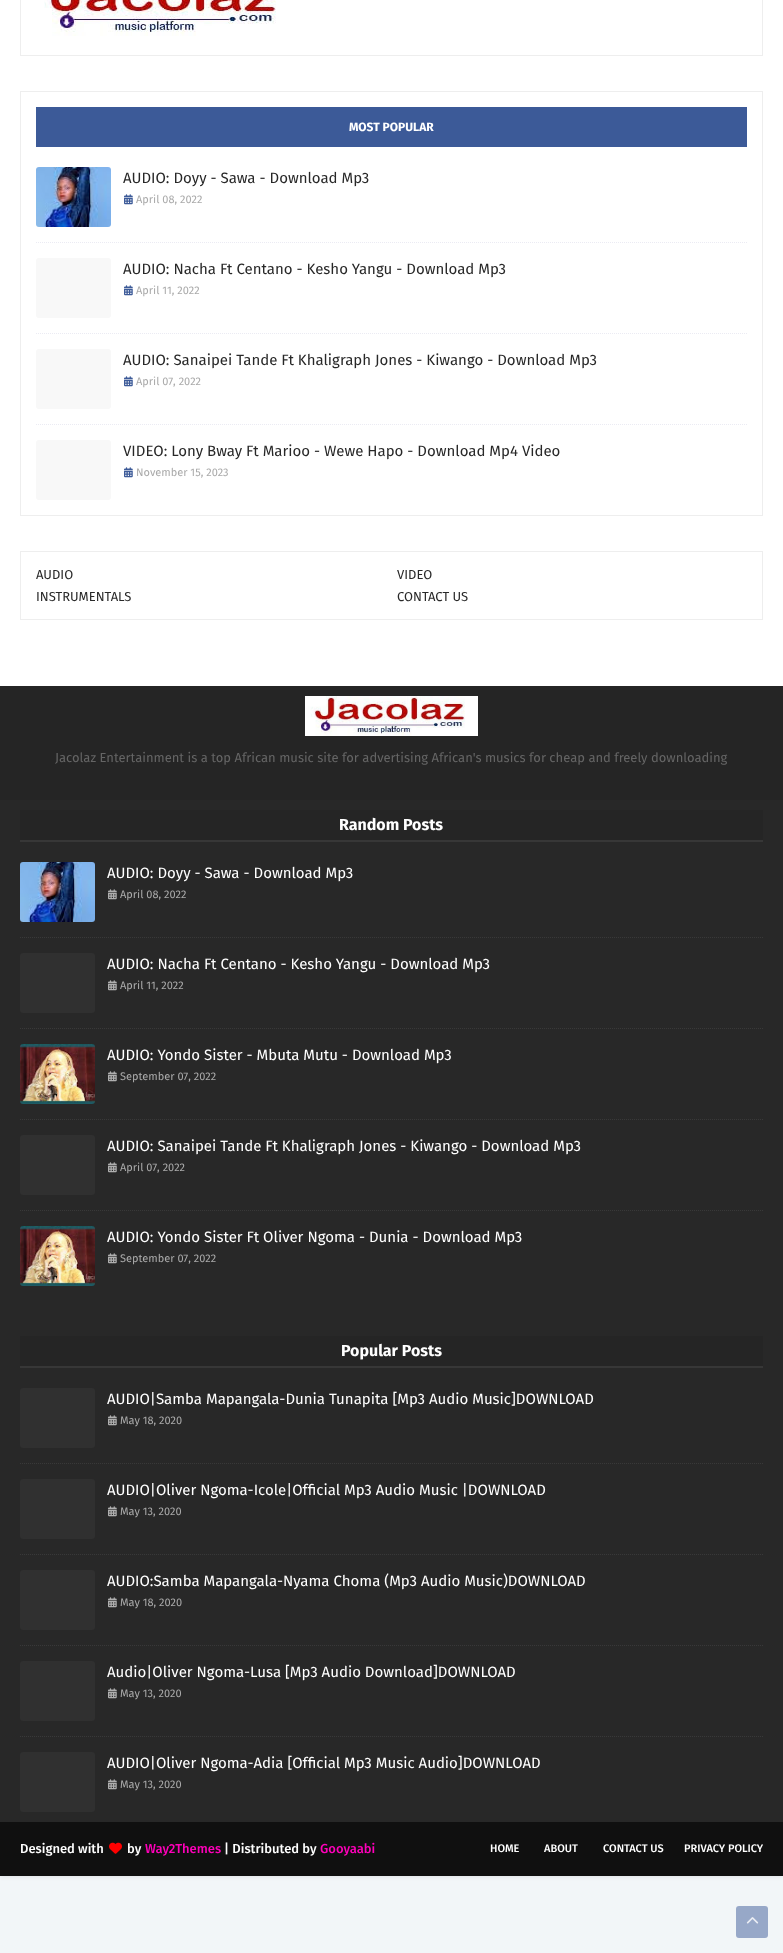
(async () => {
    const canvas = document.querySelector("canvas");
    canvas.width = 783;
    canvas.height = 1953;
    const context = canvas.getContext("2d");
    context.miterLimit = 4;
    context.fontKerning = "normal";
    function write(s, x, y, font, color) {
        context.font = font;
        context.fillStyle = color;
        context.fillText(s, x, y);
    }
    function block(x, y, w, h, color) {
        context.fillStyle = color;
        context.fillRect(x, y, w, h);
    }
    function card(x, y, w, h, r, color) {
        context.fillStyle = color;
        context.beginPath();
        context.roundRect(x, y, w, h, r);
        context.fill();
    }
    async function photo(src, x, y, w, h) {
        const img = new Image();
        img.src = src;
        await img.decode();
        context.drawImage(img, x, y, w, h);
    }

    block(0, 0, 783, 1953, "rgb(242, 246, 248)");
    context.fillStyle = "rgba(0, 0, 0, 0.1)";
    context.filter = "blur(2.5px)";
    context.beginPath();
    context.rect(0, -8, 783, 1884);
    context.fill();
    context.filter = "none";
    block(0, 0, 783, 686, "rgb(255, 255, 255)");
    context.strokeStyle = "rgb(238, 238, 238)";
    context.strokeRect(20.5, -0.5, 742, 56);
    await photo("media/1.png", 44, 0, 232, 36);
    context.strokeRect(20.5, 91.5, 742, 424);
    block(36, 107, 711, 40, "rgb(60, 90, 152)");
    write("MOST POPULAR", 349, 131, "bold 12px Fira Sans", "rgb(255, 255, 255)");
    await photo("media/2.png", 36, 167, 75, 60);
    write("AUDIO: Doyy - Sawa - Download Mp3", 123, 183, "15px Fira Sans", "rgb(40, 40, 40)");
    await photo("media/3.png", 124, 194, 9, 11);
    write("April 08, 2022", 136, 203, "11px Fira Sans", "rgb(170, 170, 170)");
    context.beginPath();
    context.moveTo(36, 242.5);
    context.lineTo(747, 242.5);
    context.strokeStyle = "rgb(235, 235, 243)";
    context.setLineDash([1, 1]);
    context.stroke();
    card(36, 258, 75, 60, 3, "rgb(248, 248, 248)");
    write("AUDIO: Nacha Ft Centano - Kesho Yangu - Download Mp3", 123, 274, "15px Fira Sans", "rgb(40, 40, 40)");
    await photo("media/3.png", 124, 285, 9, 11);
    write("April 11, 2022", 136, 294, "11px Fira Sans", "rgb(170, 170, 170)");
    context.beginPath();
    context.moveTo(36, 333.5);
    context.lineTo(747, 333.5);
    context.stroke();
    card(36, 349, 75, 60, 3, "rgb(248, 248, 248)");
    write("AUDIO: Sanaipei Tande Ft Khaligraph Jones - Kiwango - Download Mp3", 123, 365, "15px Fira Sans", "rgb(40, 40, 40)");
    await photo("media/3.png", 124, 376, 9, 11);
    write("April 07, 2022", 136, 385, "11px Fira Sans", "rgb(170, 170, 170)");
    context.beginPath();
    context.moveTo(36, 424.5);
    context.lineTo(747, 424.5);
    context.stroke();
    card(36, 440, 75, 60, 3, "rgb(248, 248, 248)");
    write("VIDEO: Lony Bway Ft Marioo - Wewe Hapo - Download Mp4 Video", 123, 456, "15px Fira Sans", "rgb(40, 40, 40)");
    await photo("media/3.png", 124, 467, 9, 11);
    write("November 15, 2023", 136, 476, "11px Fira Sans", "rgb(170, 170, 170)");
    context.strokeStyle = "rgb(238, 238, 238)";
    context.setLineDash([]);
    context.strokeRect(20.5, 551.5, 742, 68);
    write("AUDIO", 36, 579, "13px Fira Sans", "rgb(40, 40, 40)");
    write("VIDEO", 397, 579, "13px Fira Sans", "rgb(40, 40, 40)");
    write("INSTRUMENTALS", 36, 601, "13px Fira Sans", "rgb(40, 40, 40)");
    write("CONTACT US", 397, 601, "13px Fira Sans", "rgb(40, 40, 40)");
    block(0, 800, 783, 1022, "rgb(40, 40, 40)");
    block(0, 686, 783, 114, "rgb(37, 37, 37)");
    await photo("media/4.png", 305, 696, 173, 40);
    write("Jacolaz Entertainment is a top African music site for advertising African's musics for cheap and freely downloading", 55, 762, "13px Fira Sans", "rgb(101, 101, 101)");
    block(20, 810, 743, 30, "rgb(37, 37, 37)");
    block(20, 840, 743, 2, "rgb(55, 55, 55)");
    write("Random Posts", 339, 830, "bold 16px Fira Sans", "rgb(255, 255, 255)");
    await photo("media/5.png", 20, 862, 75, 60);
    write("AUDIO: Doyy - Sawa - Download Mp3", 107, 878, "15px Fira Sans", "rgb(255, 255, 255)");
    await photo("media/6.png", 108, 889, 9, 11);
    write("April 08, 2022", 120, 898, "11px Fira Sans", "rgb(170, 170, 170)");
    context.beginPath();
    context.moveTo(20, 937.5);
    context.lineTo(763, 937.5);
    context.strokeStyle = "rgb(57, 57, 57)";
    context.setLineDash([1, 1]);
    context.stroke();
    card(20, 953, 75, 60, 3, "rgb(48, 48, 48)");
    write("AUDIO: Nacha Ft Centano - Kesho Yangu - Download Mp3", 107, 969, "15px Fira Sans", "rgb(255, 255, 255)");
    await photo("media/6.png", 108, 980, 9, 11);
    write("April 11, 2022", 120, 989, "11px Fira Sans", "rgb(170, 170, 170)");
    context.beginPath();
    context.moveTo(20, 1028.5);
    context.lineTo(763, 1028.5);
    context.stroke();
    await photo("media/7.png", 20, 1044, 75, 60);
    write("AUDIO: Yondo Sister - Mbuta Mutu - Download Mp3", 107, 1060, "15px Fira Sans", "rgb(255, 255, 255)");
    await photo("media/6.png", 108, 1071, 9, 11);
    write("September 07, 2022", 120, 1080, "11px Fira Sans", "rgb(170, 170, 170)");
    context.beginPath();
    context.moveTo(20, 1119.5);
    context.lineTo(763, 1119.5);
    context.stroke();
    card(20, 1135, 75, 60, 3, "rgb(48, 48, 48)");
    write("AUDIO: Sanaipei Tande Ft Khaligraph Jones - Kiwango - Download Mp3", 107, 1151, "15px Fira Sans", "rgb(255, 255, 255)");
    await photo("media/6.png", 108, 1162, 9, 11);
    write("April 07, 2022", 120, 1171, "11px Fira Sans", "rgb(170, 170, 170)");
    context.beginPath();
    context.moveTo(20, 1210.5);
    context.lineTo(763, 1210.5);
    context.stroke();
    await photo("media/8.png", 20, 1226, 75, 60);
    write("AUDIO: Yondo Sister Ft Oliver Ngoma - Dunia - Download Mp3", 107, 1242, "15px Fira Sans", "rgb(255, 255, 255)");
    await photo("media/6.png", 108, 1253, 9, 11);
    write("September 07, 2022", 120, 1262, "11px Fira Sans", "rgb(170, 170, 170)");
    block(20, 1336, 743, 30, "rgb(37, 37, 37)");
    block(20, 1366, 743, 2, "rgb(55, 55, 55)");
    write("Popular Posts", 341, 1356, "bold 16px Fira Sans", "rgb(255, 255, 255)");
    card(20, 1388, 75, 60, 3, "rgb(48, 48, 48)");
    write("AUDIO|Samba Mapangala-Dunia Tunapita [Mp3 Audio Music]DOWNLOAD", 107, 1404, "15px Fira Sans", "rgb(255, 255, 255)");
    await photo("media/6.png", 108, 1415, 9, 11);
    write("May 18, 2020", 120, 1424, "11px Fira Sans", "rgb(170, 170, 170)");
    context.beginPath();
    context.moveTo(20, 1463.5);
    context.lineTo(763, 1463.5);
    context.stroke();
    card(20, 1479, 75, 60, 3, "rgb(48, 48, 48)");
    write("AUDIO|Oliver Ngoma-Icole|Official Mp3 Audio Music |DOWNLOAD", 107, 1495, "15px Fira Sans", "rgb(255, 255, 255)");
    await photo("media/6.png", 108, 1506, 9, 11);
    write("May 13, 2020", 120, 1515, "11px Fira Sans", "rgb(170, 170, 170)");
    context.beginPath();
    context.moveTo(20, 1554.5);
    context.lineTo(763, 1554.5);
    context.stroke();
    card(20, 1570, 75, 60, 3, "rgb(48, 48, 48)");
    write("AUDIO:Samba Mapangala-Nyama Choma (Mp3 Audio Music)DOWNLOAD", 107, 1586, "15px Fira Sans", "rgb(255, 255, 255)");
    await photo("media/6.png", 108, 1597, 9, 11);
    write("May 18, 2020", 120, 1606, "11px Fira Sans", "rgb(170, 170, 170)");
    context.beginPath();
    context.moveTo(20, 1645.5);
    context.lineTo(763, 1645.5);
    context.stroke();
    card(20, 1661, 75, 60, 3, "rgb(48, 48, 48)");
    write("Audio|Oliver Ngoma-Lusa [Mp3 Audio Download]DOWNLOAD", 107, 1677, "15px Fira Sans", "rgb(255, 255, 255)");
    await photo("media/6.png", 108, 1688, 9, 11);
    write("May 13, 2020", 120, 1697, "11px Fira Sans", "rgb(170, 170, 170)");
    context.beginPath();
    context.moveTo(20, 1736.5);
    context.lineTo(763, 1736.5);
    context.stroke();
    card(20, 1752, 75, 60, 3, "rgb(48, 48, 48)");
    write("AUDIO|Oliver Ngoma-Adia [Official Mp3 Music Audio]DOWNLOAD", 107, 1768, "15px Fira Sans", "rgb(255, 255, 255)");
    await photo("media/6.png", 108, 1779, 9, 11);
    write("May 13, 2020", 120, 1788, "11px Fira Sans", "rgb(170, 170, 170)");
    block(0, 1822, 783, 54, "rgb(16, 16, 16)");
    write("Designed with", 20, 1853, "500 13px Fira Sans", "rgb(255, 255, 255)");
    await photo("media/9.png", 109, 1842, 13, 12);
    write("by", 127, 1853, "500 13px Fira Sans", "rgb(255, 255, 255)");
    write("Way2Themes", 145, 1853, "500 13px Fira Sans", "rgb(255, 0, 186)");
    write("| Distributed by", 224, 1853, "500 13px Fira Sans", "rgb(255, 255, 255)");
    write("Gooyaabi", 320, 1853, "500 13px Fira Sans", "rgb(255, 0, 186)");
    write("HOME", 490, 1852, "500 11px Fira Sans", "rgb(255, 255, 255)");
    write("ABOUT", 544, 1852, "500 11px Fira Sans", "rgb(255, 255, 255)");
    write("CONTACT US", 603, 1852, "500 11px Fira Sans", "rgb(255, 255, 255)");
    write("PRIVACY POLICY", 684, 1852, "500 11px Fira Sans", "rgb(255, 255, 255)");
    card(736, 1906, 32, 32, 3, "rgb(151, 168, 200)");
    await photo("media/10.png", 746, 1917, 13, 7);
})();
